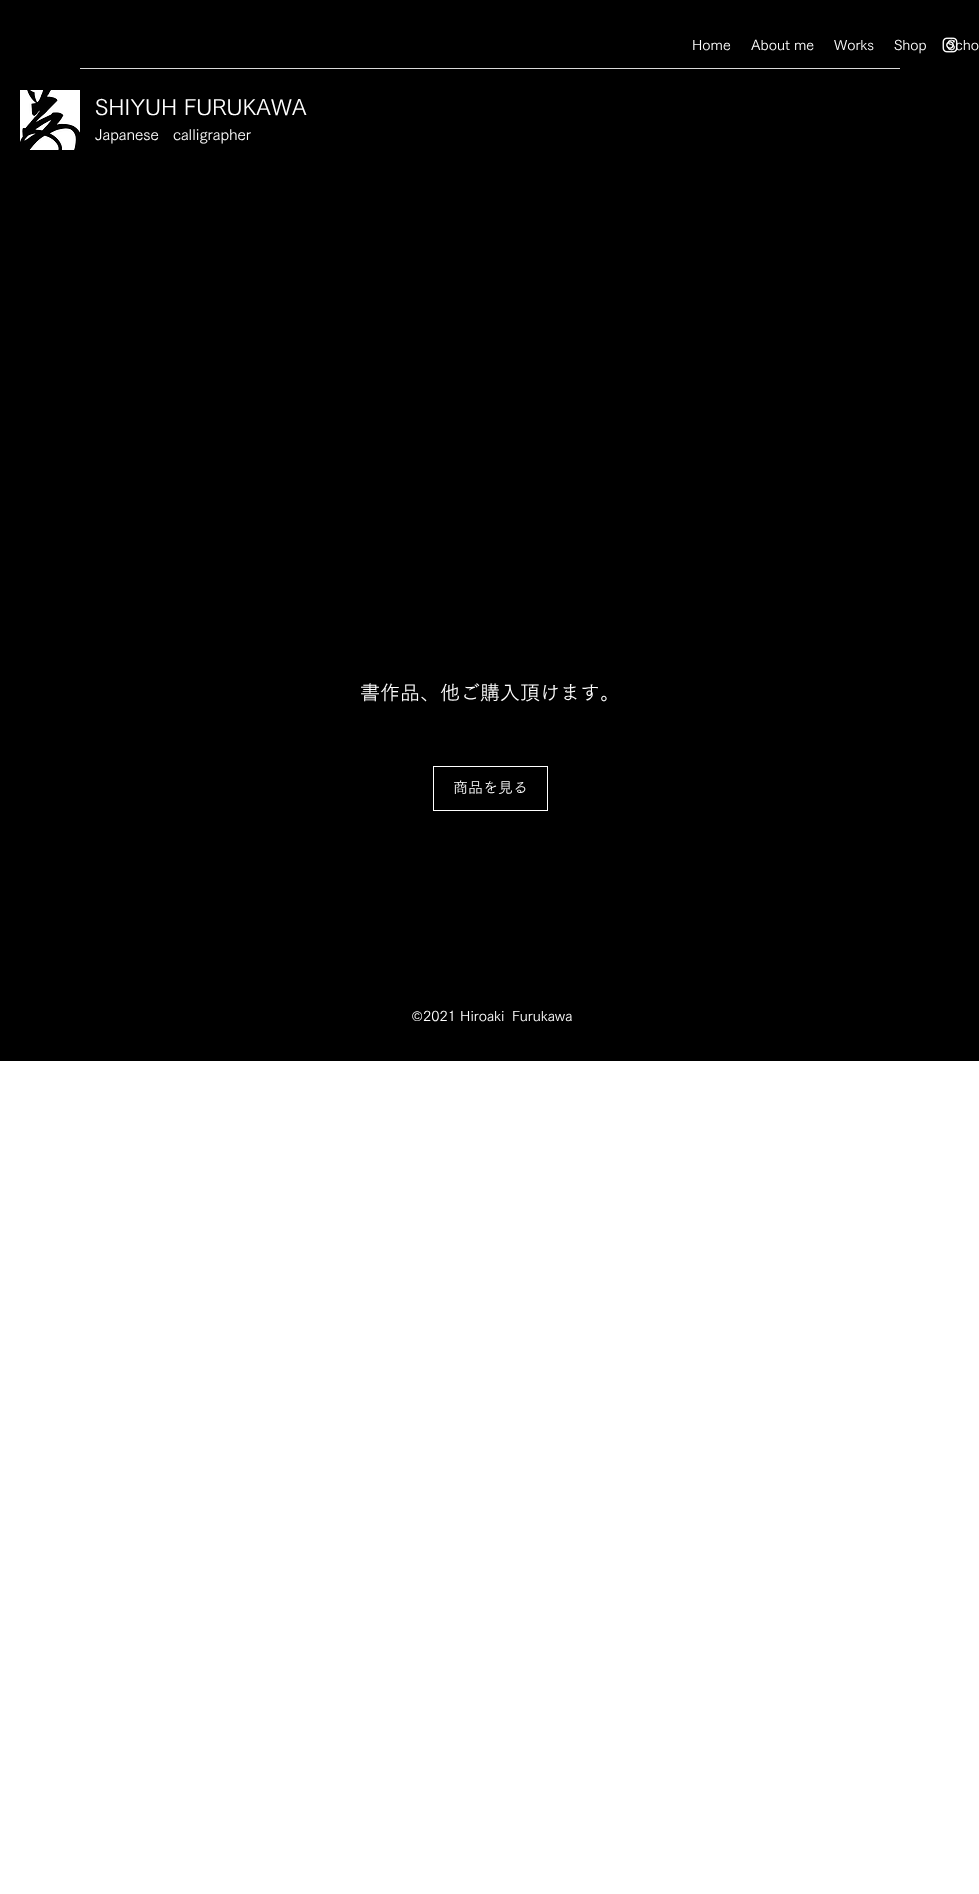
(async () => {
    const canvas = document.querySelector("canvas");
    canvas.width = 979;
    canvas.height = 1894;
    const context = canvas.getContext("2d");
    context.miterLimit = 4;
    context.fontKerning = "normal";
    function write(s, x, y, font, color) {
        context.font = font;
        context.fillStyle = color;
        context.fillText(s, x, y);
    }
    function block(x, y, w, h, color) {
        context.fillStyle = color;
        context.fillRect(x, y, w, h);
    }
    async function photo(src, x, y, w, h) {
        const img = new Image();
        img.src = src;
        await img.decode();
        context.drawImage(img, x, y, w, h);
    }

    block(0, 0, 979, 1894, "rgb(255, 255, 255)");
    block(0, 0, 979, 1061, "rgb(0, 0, 0)");
    await photo("media/1.png", 942, 37, 16, 16);
    write("Home", 692, 50, "14px 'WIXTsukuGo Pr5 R'", "rgb(255, 255, 255)");
    write("About me", 751, 50, "14px 'WIXTsukuGo Pr5 R'", "rgb(255, 255, 255)");
    write("Works", 834, 50, "14px 'WIXTsukuGo Pr5 R'", "rgb(255, 255, 255)");
    write("Shop", 894, 50, "14px 'WIXTsukuGo Pr5 R'", "rgb(255, 255, 255)");
    write("Scho", 947, 50, "14px 'WIXTsukuGo Pr5 R'", "rgb(255, 255, 255)");
    block(80, 68, 820, 1, "rgb(217, 217, 217)");
    await photo("media/2.png", 20, 90, 60, 60);
    write("SHIYUH FURUKAWA", 95, 115, "22px 'WIXTsukuGo Pr5 R'", "rgb(255, 255, 255)");
    write("Japanese", 95, 140, "15px 'WIXTsukuGo Pr5 R'", "rgb(255, 255, 255)");
    write("calligrapher", 173, 140, "15px 'WIXTsukuGo Pr5 R'", "rgb(255, 255, 255)");
    write("書作品、他ご購入頂けます。", 360, 700, "20px 'WIXTsukuGo Pr5 R'", "rgb(255, 255, 255)");
    context.strokeStyle = "rgb(255, 255, 255)";
    context.strokeRect(433.5, 766.5, 114, 44);
    write("商品を見る", 453, 793, "15px 'WIXTsukuGo Pr5 R'", "rgb(255, 255, 255)");
    write("©", 412, 1021, "14px Liberation Sans", "rgb(255, 255, 255)");
    write("2021 Hiroaki", 423, 1021, "14px 'WIXTsukuGo Pr5 R'", "rgb(255, 255, 255)");
    write("Furukawa", 512, 1021, "14px 'WIXTsukuGo Pr5 R'", "rgb(255, 255, 255)");
})();
